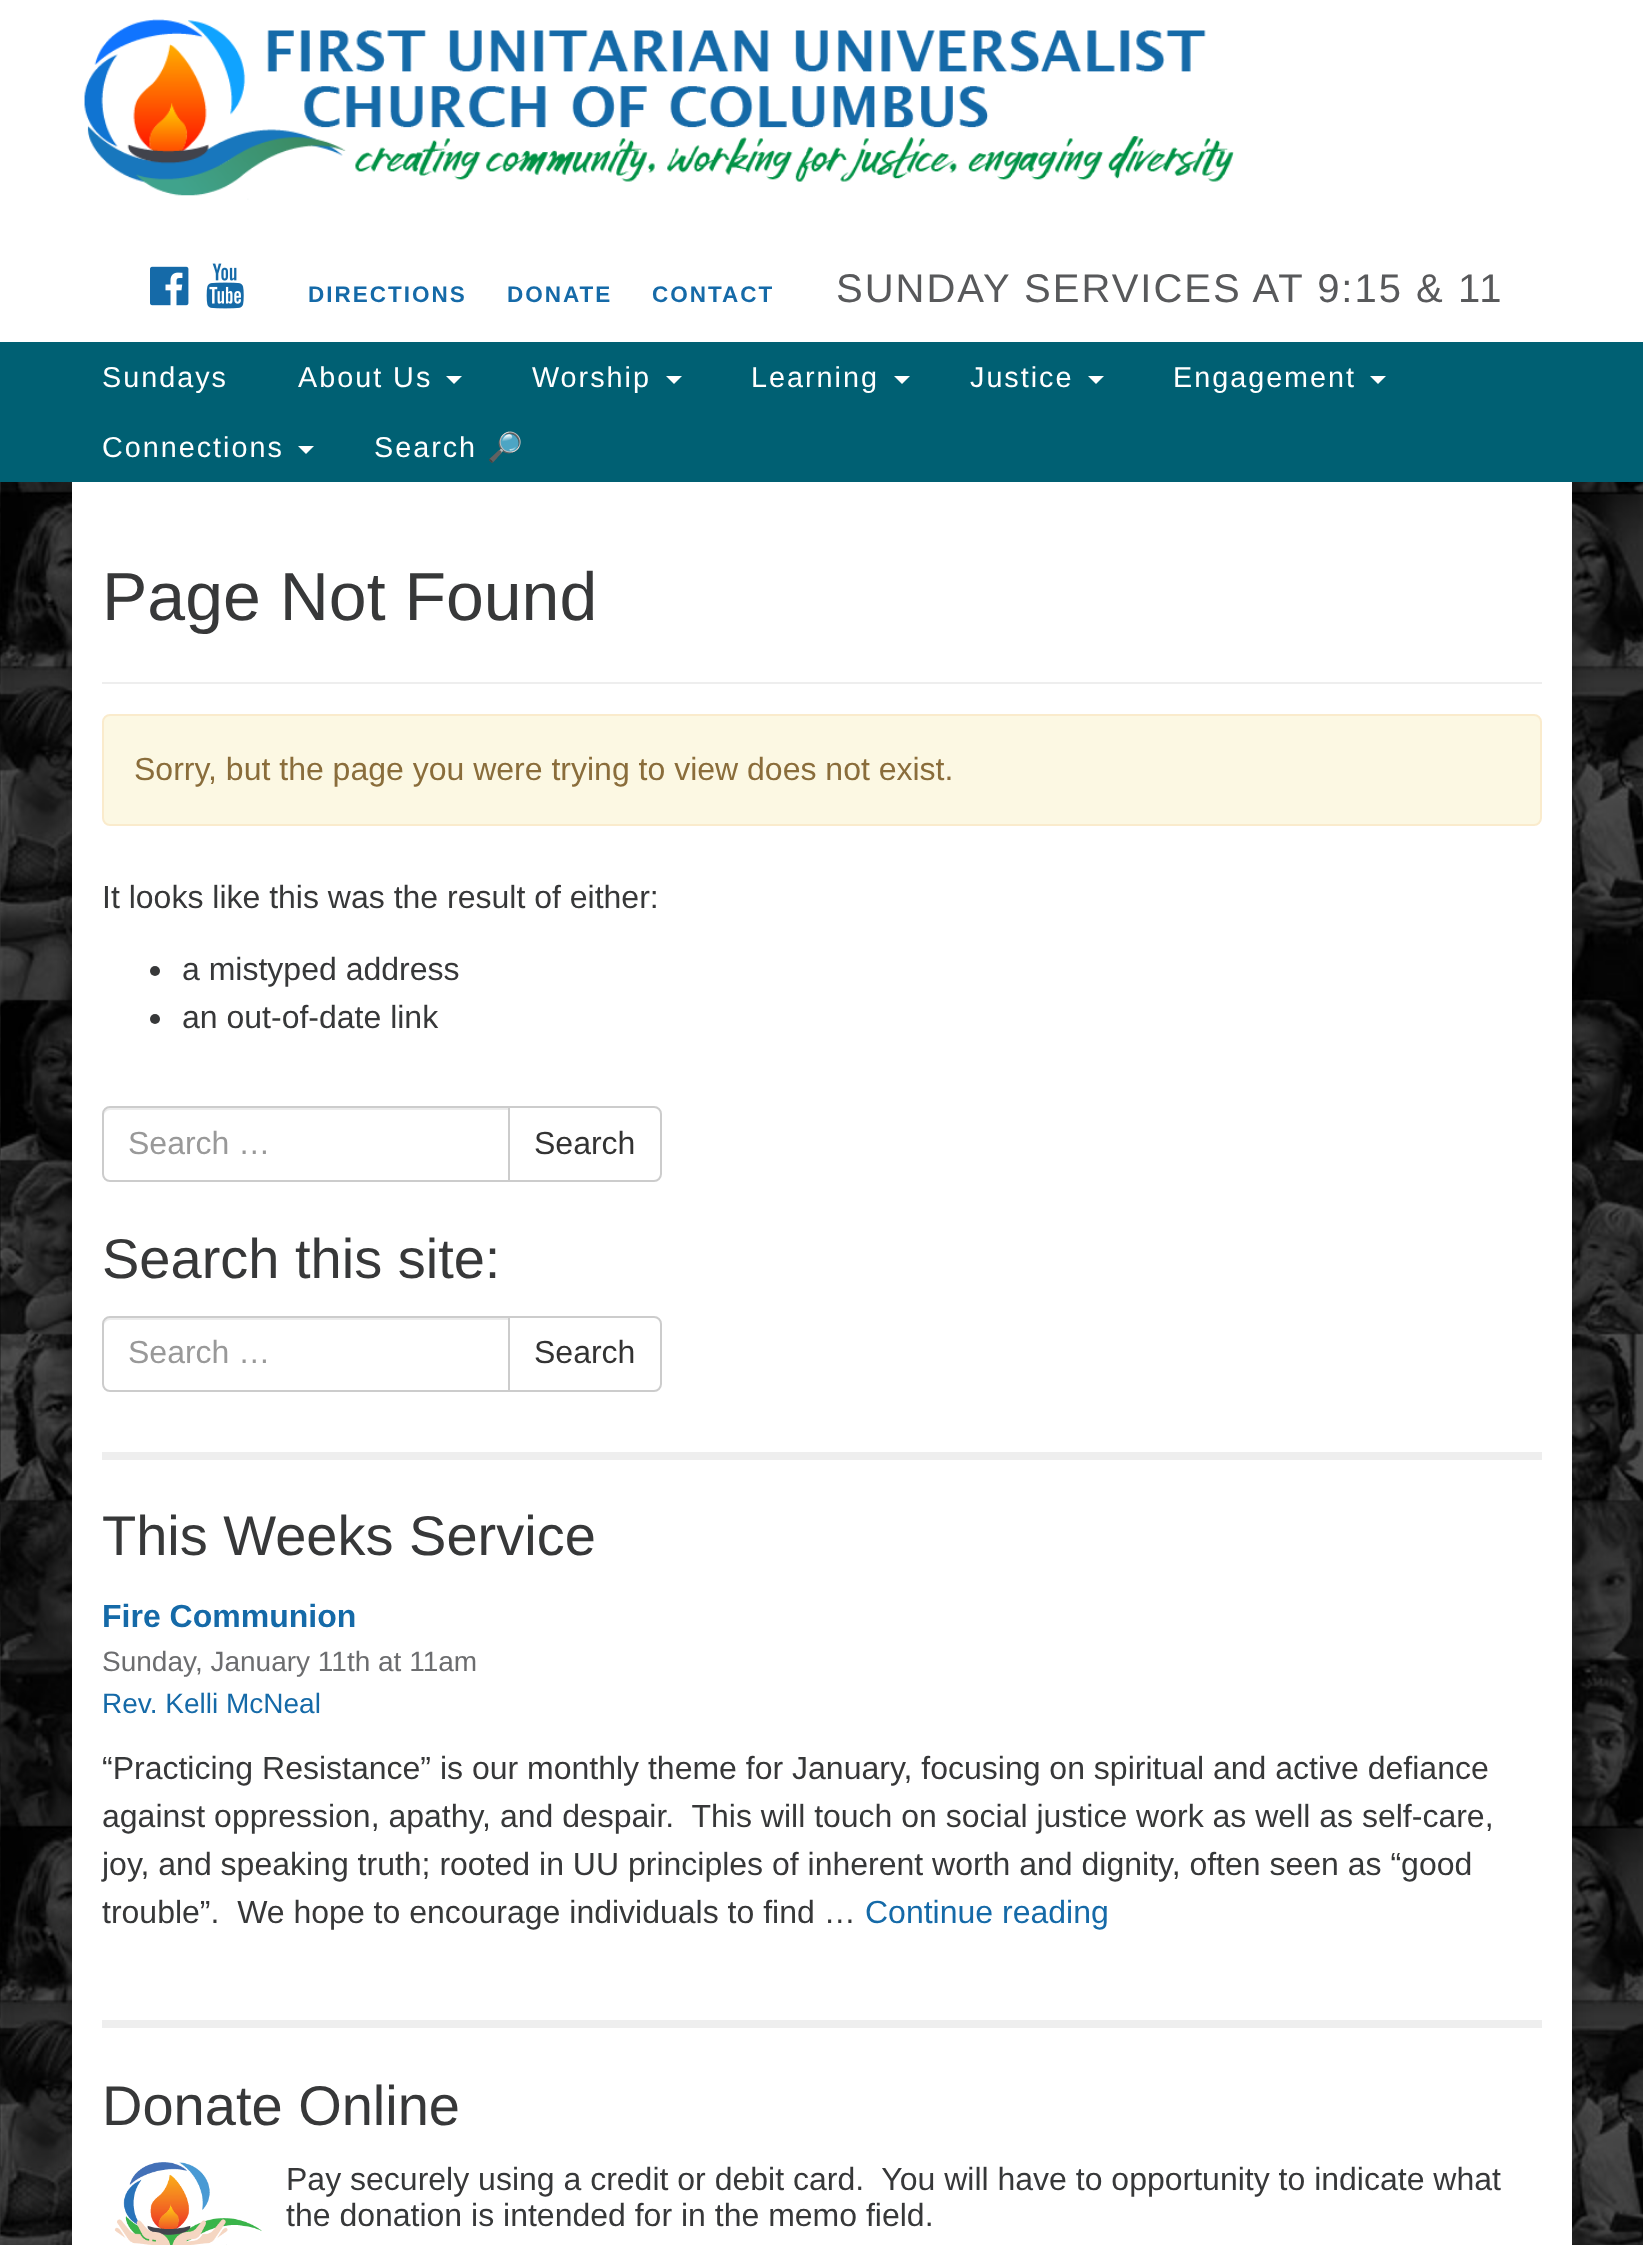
(async () => {
    const canvas = document.querySelector("canvas");
    canvas.width = 1643;
    canvas.height = 2245;
    const context = canvas.getContext("2d");
    context.miterLimit = 4;
    context.fontKerning = "normal";
    function write(s, x, y, font, color) {
        context.font = font;
        context.fillStyle = color;
        context.fillText(s, x, y);
    }
    function block(x, y, w, h, color) {
        context.fillStyle = color;
        context.fillRect(x, y, w, h);
    }
    async function photo(src, x, y, w, h) {
        const img = new Image();
        img.src = src;
        await img.decode();
        context.drawImage(img, x, y, w, h);
    }

    block(0, 0, 1643, 2245, "rgb(255, 255, 255)");
    await photo("media/1.png", 0, 482, 1643, 1763);
    await photo("media/2.png", 84, 19, 1150, 181);
    await photo("media/3.png", 150, 266, 39, 40);
    await photo("media/4.png", 206, 263, 38, 46);
    context.letterSpacing = "2px";
    write("DIRECTIONS", 308, 302, "bold 22.5px Liberation Sans", "rgb(21, 106, 168)");
    write("DONATE", 507, 302, "bold 22.5px Liberation Sans", "rgb(21, 106, 168)");
    write("CONTACT", 652, 302, "bold 22.5px Liberation Sans", "rgb(21, 106, 168)");
    write("SUNDAY SERVICES AT 9:15 & 11", 836, 302, "40px Liberation Sans", "rgb(88, 89, 91)");
    context.fillStyle = "rgba(0, 0, 0, 0.3)";
    context.filter = "blur(10px)";
    context.beginPath();
    context.rect(72, 482, 1500, 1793);
    context.fill();
    context.filter = "none";
    block(0, 342, 1643, 140, "rgb(0, 96, 115)");
    write("Sundays", 102, 387, "28.75px Liberation Sans", "rgb(255, 255, 255)");
    write("About Us", 298, 387, "28.75px Liberation Sans", "rgb(255, 255, 255)");
    context.beginPath();
    context.moveTo(446, 376);
    context.lineTo(462, 376);
    context.lineTo(454, 384);
    context.closePath();
    context.fill();
    write("Worship", 532, 387, "28.75px Liberation Sans", "rgb(255, 255, 255)");
    context.beginPath();
    context.moveTo(666, 376);
    context.lineTo(682, 376);
    context.lineTo(674, 384);
    context.closePath();
    context.fill();
    write("Learning", 751, 387, "28.75px Liberation Sans", "rgb(255, 255, 255)");
    context.beginPath();
    context.moveTo(894, 376);
    context.lineTo(910, 376);
    context.lineTo(902, 384);
    context.closePath();
    context.fill();
    write("Justice", 970, 387, "28.75px Liberation Sans", "rgb(255, 255, 255)");
    context.beginPath();
    context.moveTo(1088, 376);
    context.lineTo(1104, 376);
    context.lineTo(1096, 384);
    context.closePath();
    context.fill();
    write("Engagement", 1173, 387, "28.75px Liberation Sans", "rgb(255, 255, 255)");
    context.beginPath();
    context.moveTo(1370, 376);
    context.lineTo(1386, 376);
    context.lineTo(1378, 384);
    context.closePath();
    context.fill();
    write("Connections", 102, 457, "28.75px Liberation Sans", "rgb(255, 255, 255)");
    context.beginPath();
    context.moveTo(298, 446);
    context.lineTo(314, 446);
    context.lineTo(306, 454);
    context.closePath();
    context.fill();
    write("Search", 374, 457, "28.75px Liberation Sans", "rgb(255, 255, 255)");
    write("🔎", 487, 457, "28.75px Noto Color Emoji", "rgb(255, 255, 255)");
    block(72, 482, 1500, 1763, "rgb(255, 255, 255)");
    block(102, 682, 1440, 2, "rgb(238, 238, 238)");
    context.letterSpacing = "0px";
    write("Page Not Found", 102, 620, "68px Liberation Sans", "rgb(55, 56, 57)");
    context.fillStyle = "rgb(252, 248, 227)";
    context.beginPath();
    context.roundRect(103, 715, 1438, 110, 7);
    context.fill();
    context.strokeStyle = "rgb(250, 235, 204)";
    context.lineWidth = 2;
    context.stroke();
    write("Sorry, but the page you were trying to view does not exist.", 134, 780, "32px Liberation Sans", "rgb(138, 109, 59)");
    write("It looks like this was the result of either:", 102, 908, "32px Liberation Sans", "rgb(55, 56, 57)");
    context.beginPath();
    context.arc(155, 971, 5, 0, Math.PI * 2);
    context.fill();
    write("a mistyped address", 182, 980, "32px Liberation Sans", "rgb(55, 56, 57)");
    context.beginPath();
    context.arc(155, 1019, 5, 0, Math.PI * 2);
    context.fill();
    write("an out-of-date link", 182, 1028, "32px Liberation Sans", "rgb(55, 56, 57)");
    context.beginPath();
    context.roundRect(509, 1107, 152, 74, [0, 7, 7, 0]);
    context.strokeStyle = "rgb(204, 204, 204)";
    context.stroke();
    context.fillStyle = "rgb(255, 255, 255)";
    context.beginPath();
    context.roundRect(102, 1106, 408, 76, [8, 0, 0, 8]);
    context.fill();
    context.fillStyle = "rgb(236, 236, 236)";
    context.beginPath();
    context.moveTo(110, 1110);
    context.lineTo(508, 1110);
    context.lineTo(508, 1108);
    context.lineTo(110, 1108);
    context.bezierCurveTo(105, 1108, 104, 1112, 104, 1116);
    context.bezierCurveTo(104, 1113, 107, 1110, 110, 1110);
    context.closePath();
    context.fill();
    context.beginPath();
    context.roundRect(103, 1107, 406, 74, [7, 0, 0, 7]);
    context.stroke();
    write("Search …", 128, 1154, "32px Liberation Sans", "rgb(153, 153, 153)");
    write("Search", 534, 1154, "32px Liberation Sans", "rgb(51, 51, 51)");
    write("Search this site:", 102, 1278, "56px Liberation Sans", "rgb(55, 56, 57)");
    context.beginPath();
    context.roundRect(509, 1317, 152, 74, [0, 7, 7, 0]);
    context.stroke();
    context.fillStyle = "rgb(255, 255, 255)";
    context.beginPath();
    context.roundRect(102, 1316, 408, 76, [8, 0, 0, 8]);
    context.fill();
    context.fillStyle = "rgb(236, 236, 236)";
    context.beginPath();
    context.moveTo(110, 1320);
    context.lineTo(508, 1320);
    context.lineTo(508, 1318);
    context.lineTo(110, 1318);
    context.bezierCurveTo(105, 1318, 104, 1322, 104, 1326);
    context.bezierCurveTo(104, 1323, 107, 1320, 110, 1320);
    context.closePath();
    context.fill();
    context.beginPath();
    context.roundRect(103, 1317, 406, 74, [7, 0, 0, 7]);
    context.stroke();
    write("Search …", 128, 1363, "32px Liberation Sans", "rgb(153, 153, 153)");
    write("Search", 534, 1363, "32px Liberation Sans", "rgb(51, 51, 51)");
    block(102, 1452, 1440, 8, "rgb(238, 238, 238)");
    write("This Weeks Service", 102, 1555, "56px Liberation Sans", "rgb(55, 56, 57)");
    write("Fire Communion", 102, 1627, "bold 32px Liberation Sans", "rgb(21, 106, 168)");
    write("Sunday, January 11th at 11am", 102, 1671, "28px Liberation Sans", "rgb(108, 109, 111)");
    write("Rev. Kelli McNeal", 102, 1713, "28px Liberation Sans", "rgb(21, 106, 168)");
    write("“Practicing Resistance” is our monthly theme for January, focusing on spiritual and active defiance", 102, 1779, "32px Liberation Sans", "rgb(55, 56, 57)");
    write("against oppression, apathy, and despair.  This will touch on social justice work as well as self-care,", 102, 1827, "32px Liberation Sans", "rgb(55, 56, 57)");
    write("joy, and speaking truth; rooted in UU principles of inherent worth and dignity, often seen as “good", 102, 1875, "32px Liberation Sans", "rgb(55, 56, 57)");
    write("trouble”.  We hope to encourage individuals to find …", 102, 1923, "32px Liberation Sans", "rgb(55, 56, 57)");
    write("Continue reading", 865, 1923, "32px Liberation Sans", "rgb(21, 106, 168)");
    block(102, 2020, 1440, 8, "rgb(238, 238, 238)");
    write("Donate Online", 102, 2125, "56px Liberation Sans", "rgb(55, 56, 57)");
    await photo("media/5.png", 114, 2162, 148, 83);
    write("Pay securely using a credit or debit card.  You will have to opportunity to indicate what", 286, 2190, "32px Liberation Sans", "rgb(55, 56, 57)");
    write("the donation is intended for in the memo field.", 286, 2226, "32px Liberation Sans", "rgb(55, 56, 57)");
})();
